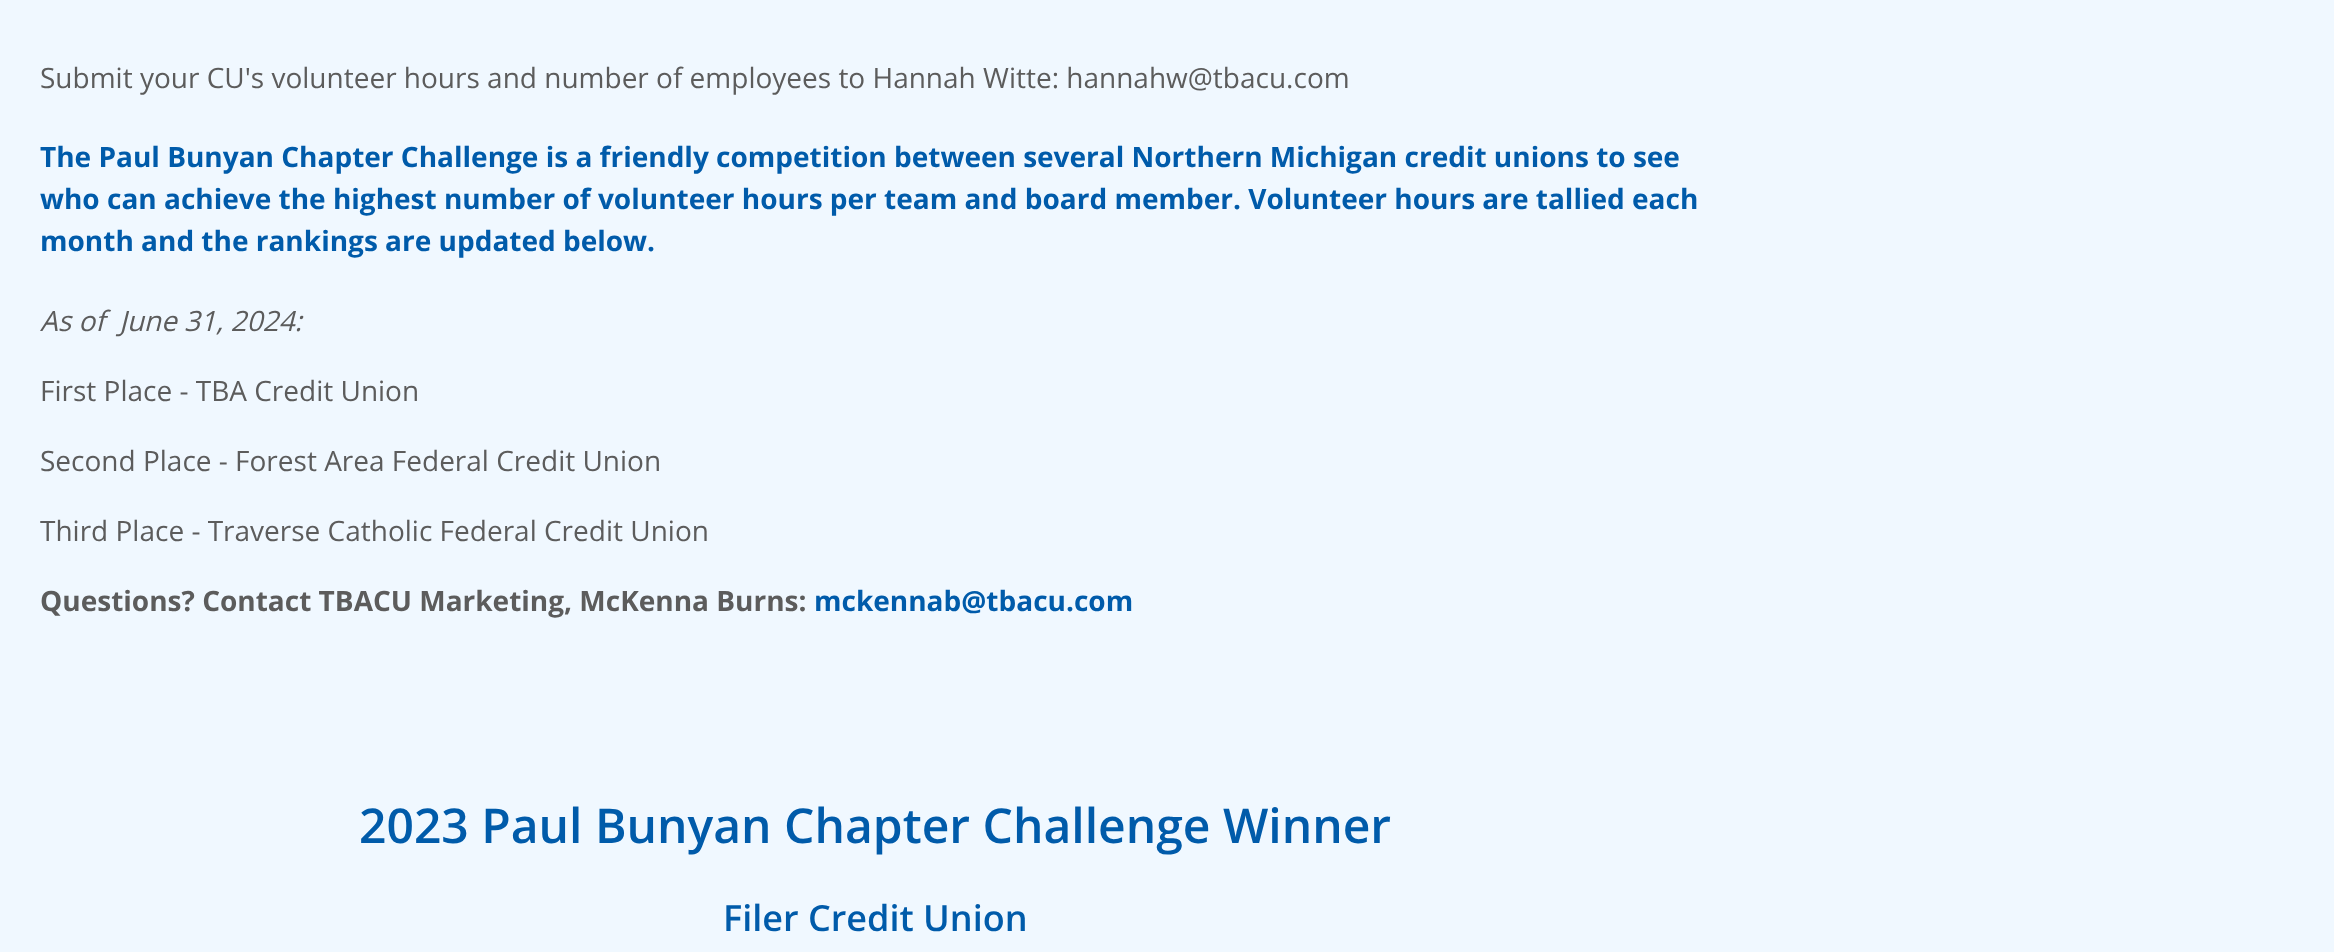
(async () => {
    const canvas = document.querySelector("canvas");
    canvas.width = 2334;
    canvas.height = 952;
    const context = canvas.getContext("2d");
    context.miterLimit = 4;
    context.fontKerning = "normal";
    function write(s, x, y, font, color) {
        context.font = font;
        context.fillStyle = color;
        context.fillText(s, x, y);
    }
    function block(x, y, w, h, color) {
        context.fillStyle = color;
        context.fillRect(x, y, w, h);
    }

    block(0, 0, 2334, 952, "rgb(240, 248, 255)");
    write("Submit your CU's volunteer hours and number of employees to Hannah Witte: hannahw@tbacu.com", 40, 88, "28px Open Sans", "rgb(92, 92, 92)");
    write("The Paul Bunyan Chapter Challenge is a friendly competition between several Northern Michigan credit unions to see", 40, 167, "bold 28px Open Sans", "rgb(0, 91, 170)");
    write("who can achieve the highest number of volunteer hours per team and board member. Volunteer hours are tallied each", 40, 209, "bold 28px Open Sans", "rgb(0, 91, 170)");
    write("month and the rankings are updated below.", 40, 251, "bold 28px Open Sans", "rgb(0, 91, 170)");
    write("As of  June 31, 2024:", 40, 331, "italic 28px Open Sans", "rgb(92, 92, 92)");
    write("First Place - TBA Credit Union", 40, 401, "28px Open Sans", "rgb(92, 92, 92)");
    write("Second Place - Forest Area Federal Credit Union", 40, 471, "28px Open Sans", "rgb(92, 92, 92)");
    write("Third Place - Traverse Catholic Federal Credit Union", 40, 541, "28px Open Sans", "rgb(92, 92, 92)");
    write("Questions? Contact TBACU Marketing, McKenna Burns:", 40, 611, "bold 28px Open Sans", "rgb(92, 92, 92)");
    write("mckennab@tbacu.com", 814, 611, "bold 28px Open Sans", "rgb(0, 91, 170)");
    write("2023 Paul Bunyan Chapter Challenge Winner", 359, 843, "600 48px Open Sans", "rgb(0, 91, 170)");
    write("Filer Credit Union", 723, 931, "600 36px Open Sans", "rgb(0, 91, 170)");
})();
